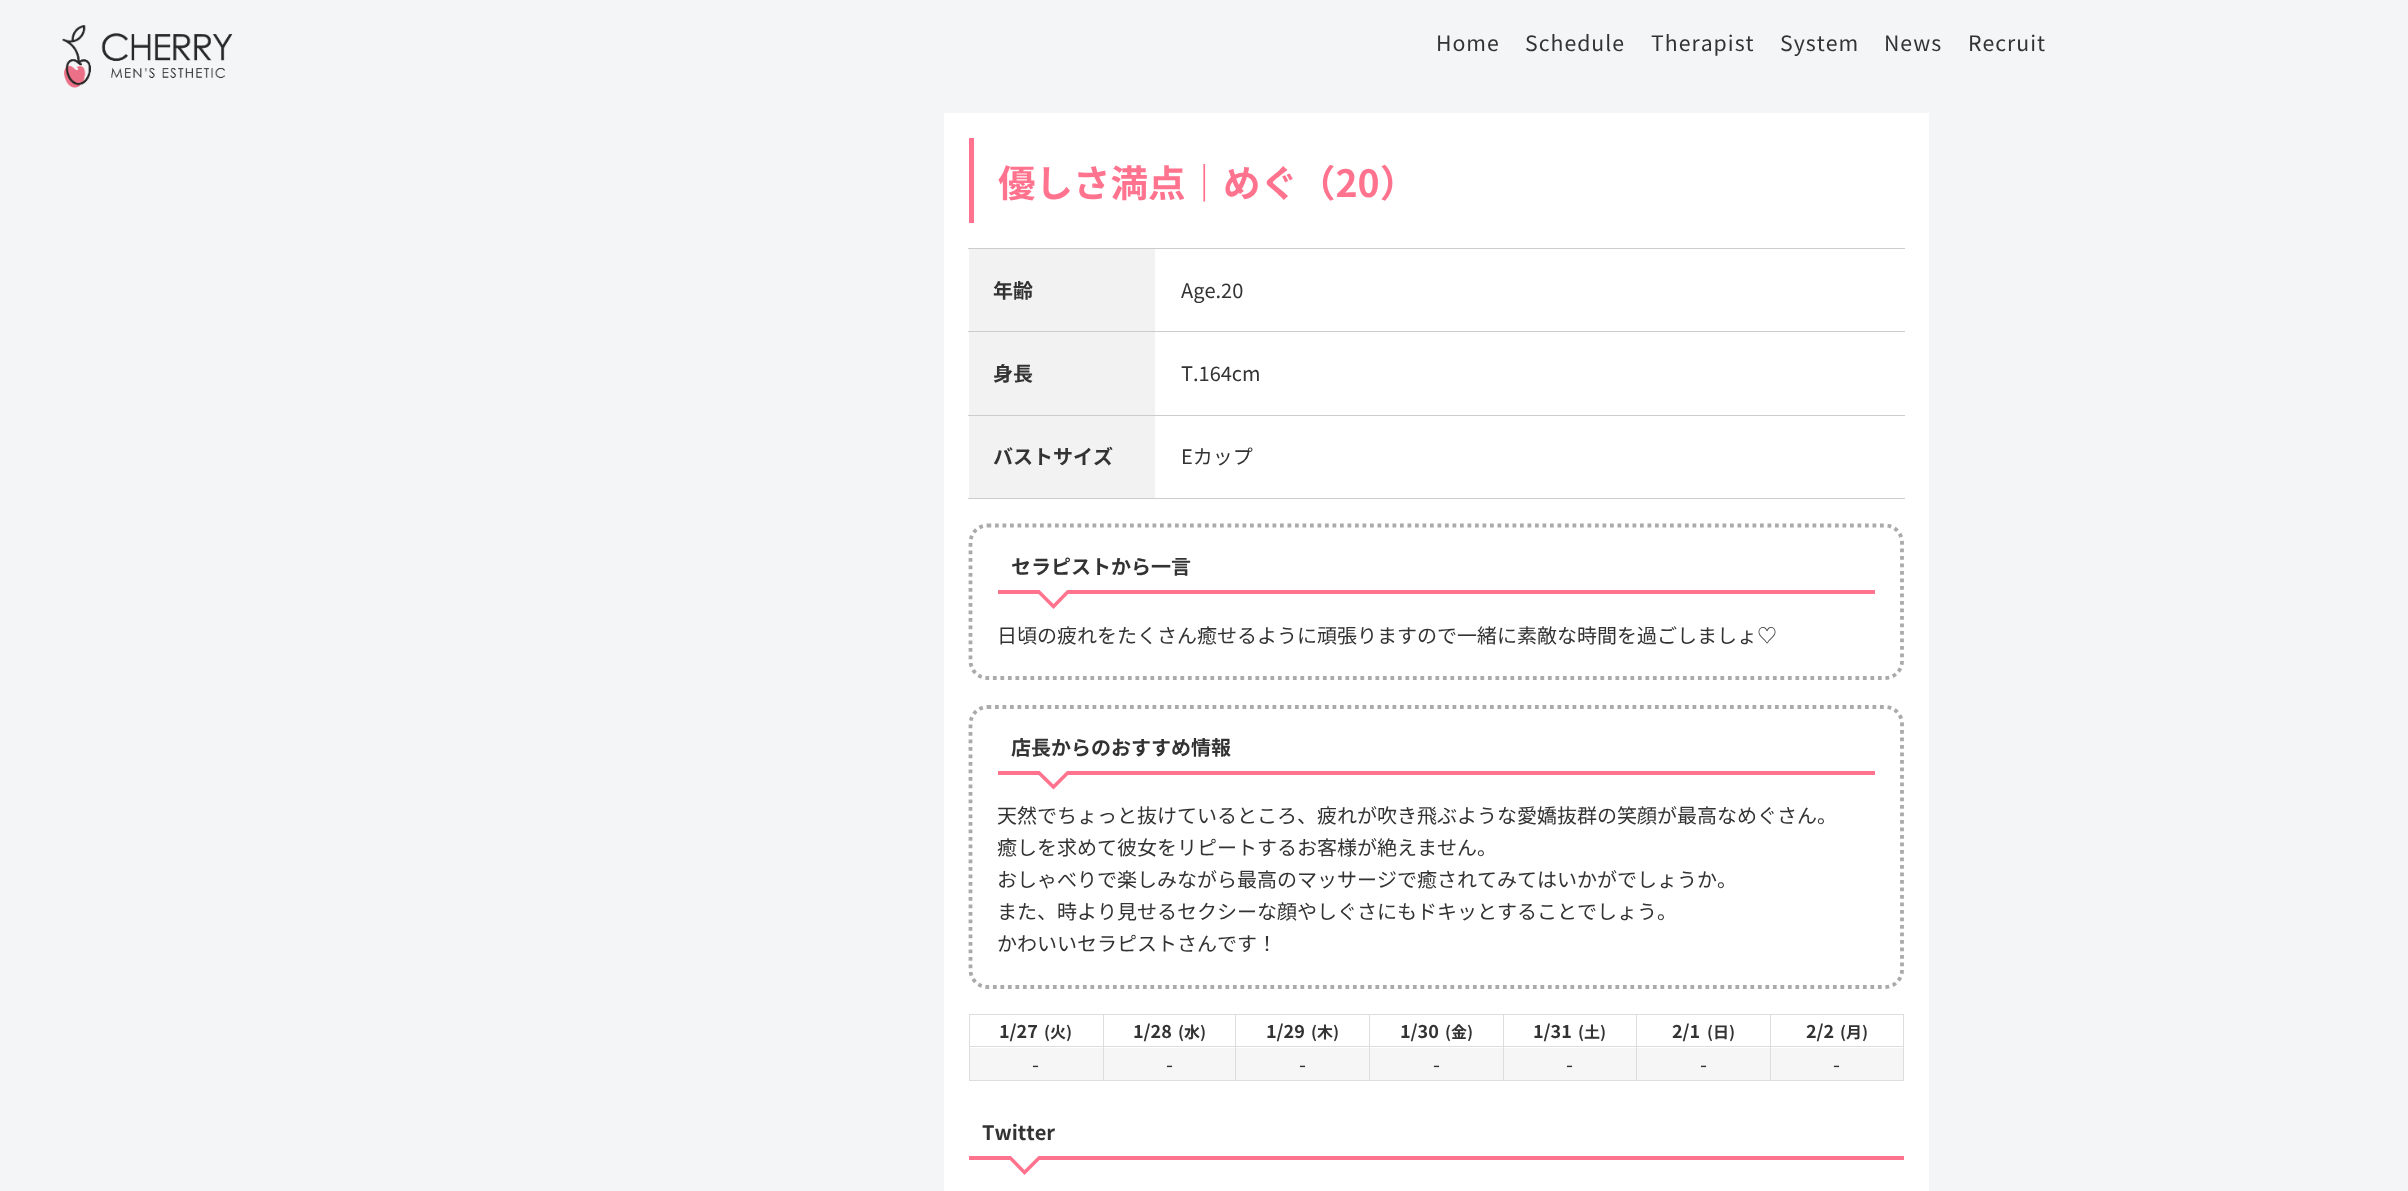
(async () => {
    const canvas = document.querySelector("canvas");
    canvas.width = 2408;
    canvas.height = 1191;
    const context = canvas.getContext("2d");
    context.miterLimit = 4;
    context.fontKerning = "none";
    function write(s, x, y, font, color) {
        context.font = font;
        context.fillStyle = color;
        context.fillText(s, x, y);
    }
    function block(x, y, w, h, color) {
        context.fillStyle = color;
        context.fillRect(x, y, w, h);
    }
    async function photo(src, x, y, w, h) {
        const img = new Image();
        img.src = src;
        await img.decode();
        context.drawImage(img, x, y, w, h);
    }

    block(0, 0, 2408, 1191, "rgb(244, 245, 247)");
    await photo("media/1.png", 62, 25, 171, 63);
    context.letterSpacing = "1px";
    write("Home", 1436, 51, "21.25px Noto Sans JP", "rgb(51, 51, 51)");
    write("Schedule", 1525, 51, "21.25px Noto Sans JP", "rgb(51, 51, 51)");
    write("Therapist", 1651, 51, "21.25px Noto Sans JP", "rgb(51, 51, 51)");
    write("System", 1780, 51, "21.25px Noto Sans JP", "rgb(51, 51, 51)");
    write("News", 1884, 51, "21.25px Noto Sans JP", "rgb(51, 51, 51)");
    write("Recruit", 1968, 51, "21.25px Noto Sans JP", "rgb(51, 51, 51)");
    block(944, 113, 985, 1078, "rgb(255, 255, 255)");
    block(969, 138, 5, 85, "rgb(255, 115, 142)");
    context.letterSpacing = "0px";
    write("優しさ満点｜めぐ（20）", 998, 197, "bold 37.5px Noto Sans JP", "rgb(255, 115, 142)");
    block(968, 248, 937, 1, "rgb(204, 204, 204)");
    block(969, 249, 186, 82, "rgb(242, 242, 243)");
    write("年齢", 993, 298, "bold 20px Noto Sans JP", "rgb(51, 51, 51)");
    write("Age.20", 1181, 298, "20px Noto Sans JP", "rgb(51, 51, 51)");
    block(968, 331, 937, 1, "rgb(204, 204, 204)");
    block(969, 332, 186, 83, "rgb(242, 242, 243)");
    write("身長", 993, 381, "bold 20px Noto Sans JP", "rgb(51, 51, 51)");
    write("T.164cm", 1181, 381, "20px Noto Sans JP", "rgb(51, 51, 51)");
    block(968, 415, 937, 1, "rgb(204, 204, 204)");
    block(968, 498, 937, 1, "rgb(204, 204, 204)");
    block(969, 416, 186, 82, "rgb(242, 242, 243)");
    write("バストサイズ", 993, 464, "bold 20px Noto Sans JP", "rgb(51, 51, 51)");
    write("Eカップ", 1181, 464, "20px Noto Sans JP", "rgb(51, 51, 51)");
    context.beginPath();
    context.moveTo(987.5, 525.5);
    context.lineTo(1885, 525.5);
    context.bezierCurveTo(1894.5, 525.5, 1902, 533, 1902, 542.5);
    context.lineTo(1902, 661);
    context.bezierCurveTo(1902, 670.5, 1894.5, 678, 1885, 678);
    context.lineTo(987.5, 678);
    context.bezierCurveTo(978, 678, 970.5, 670.5, 970.5, 661);
    context.lineTo(970.5, 542.5);
    context.bezierCurveTo(970.5, 533, 978, 525.5, 987.5, 525.5);
    context.closePath();
    context.strokeStyle = "rgb(170, 170, 170)";
    context.lineWidth = 3.8;
    context.setLineDash([3.75, 3.75]);
    context.stroke();
    block(998, 590, 877, 4, "rgb(255, 115, 142)");
    write("セラピストから一言", 1011, 574, "bold 20px Noto Sans JP", "rgb(51, 51, 51)");
    context.fillStyle = "rgb(255, 115, 142)";
    context.beginPath();
    context.moveTo(1035, 590.5);
    context.lineTo(1035, 590);
    context.lineTo(1072, 590);
    context.lineTo(1053.5, 609);
    context.closePath();
    context.fill();
    context.fillStyle = "rgb(255, 255, 255)";
    context.beginPath();
    context.moveTo(1035, 585.5);
    context.lineTo(1035, 585);
    context.lineTo(1072, 585);
    context.lineTo(1053.5, 604);
    context.closePath();
    context.fill();
    write("日頃の疲れをたくさん癒せるように頑張りますので一緒に素敵な時間を過ごしましょ♡", 997, 643, "20px Noto Sans JP", "rgb(51, 51, 51)");
    context.beginPath();
    context.moveTo(987.5, 707);
    context.lineTo(1885, 707);
    context.bezierCurveTo(1894.5, 707, 1902, 714.5, 1902, 724);
    context.lineTo(1902, 970);
    context.bezierCurveTo(1902, 979.5, 1894.5, 987, 1885, 987);
    context.lineTo(987.5, 987);
    context.bezierCurveTo(978, 987, 970.5, 979.5, 970.5, 970);
    context.lineTo(970.5, 724);
    context.bezierCurveTo(970.5, 714.5, 978, 707, 987.5, 707);
    context.closePath();
    context.stroke();
    block(998, 771, 877, 4, "rgb(255, 115, 142)");
    write("店長からのおすすめ情報", 1011, 755, "bold 20px Noto Sans JP", "rgb(51, 51, 51)");
    context.fillStyle = "rgb(255, 115, 142)";
    context.beginPath();
    context.moveTo(1035, 771);
    context.lineTo(1072, 771);
    context.lineTo(1053.5, 789.5);
    context.lineTo(1035, 771.5);
    context.closePath();
    context.fill();
    context.fillStyle = "rgb(255, 255, 255)";
    context.beginPath();
    context.moveTo(1035, 766);
    context.lineTo(1072, 766);
    context.lineTo(1053.5, 784.5);
    context.lineTo(1035, 766.5);
    context.closePath();
    context.fill();
    write("天然でちょっと抜けているところ、疲れが吹き飛ぶような愛嬌抜群の笑顔が最高なめぐさん。", 997, 823, "20px Noto Sans JP", "rgb(51, 51, 51)");
    write("癒しを求めて彼女をリピートするお客様が絶えません。", 997, 855, "20px Noto Sans JP", "rgb(51, 51, 51)");
    write("おしゃべりで楽しみながら最高のマッサージで癒されてみてはいかがでしょうか。", 997, 887, "20px Noto Sans JP", "rgb(51, 51, 51)");
    write("また、時より見せるセクシーな顔やしぐさにもドキッとすることでしょう。", 997, 919, "20px Noto Sans JP", "rgb(51, 51, 51)");
    write("かわいいセラピストさんです！", 997, 951, "20px Noto Sans JP", "rgb(51, 51, 51)");
    block(969, 1014, 935, 1, "rgb(221, 221, 221)");
    block(1903, 1014, 1, 67, "rgb(221, 221, 221)");
    block(969, 1080, 935, 1, "rgb(221, 221, 221)");
    block(969, 1014, 1, 67, "rgb(221, 221, 221)");
    write("1/27", 999, 1038, "bold 18px Noto Sans JP", "rgb(51, 51, 51)");
    write("(火)", 1044, 1038, "bold 16px Noto Sans JP", "rgb(51, 51, 51)");
    block(1770, 1046, 134, 1, "rgb(221, 221, 221)");
    block(1770, 1046, 1, 35, "rgb(221, 221, 221)");
    block(1636, 1046, 135, 1, "rgb(221, 221, 221)");
    block(1636, 1046, 1, 35, "rgb(221, 221, 221)");
    block(1503, 1046, 135, 1, "rgb(221, 221, 221)");
    block(1503, 1046, 1, 35, "rgb(221, 221, 221)");
    block(1369, 1046, 135, 1, "rgb(221, 221, 221)");
    block(1369, 1046, 1, 35, "rgb(221, 221, 221)");
    block(1235, 1046, 135, 1, "rgb(221, 221, 221)");
    block(1235, 1046, 1, 35, "rgb(221, 221, 221)");
    block(1103, 1046, 133, 1, "rgb(221, 221, 221)");
    block(1103, 1046, 1, 35, "rgb(221, 221, 221)");
    block(969, 1046, 135, 1, "rgb(221, 221, 221)");
    block(1103, 1014, 1, 34, "rgb(221, 221, 221)");
    write("1/28", 1133, 1038, "bold 18px Noto Sans JP", "rgb(51, 51, 51)");
    write("(水)", 1178, 1038, "bold 16px Noto Sans JP", "rgb(51, 51, 51)");
    block(1235, 1014, 1, 34, "rgb(221, 221, 221)");
    write("1/29", 1266, 1038, "bold 18px Noto Sans JP", "rgb(51, 51, 51)");
    write("(木)", 1311, 1038, "bold 16px Noto Sans JP", "rgb(51, 51, 51)");
    block(1369, 1014, 1, 34, "rgb(221, 221, 221)");
    write("1/30", 1400, 1038, "bold 18px Noto Sans JP", "rgb(51, 51, 51)");
    write("(金)", 1445, 1038, "bold 16px Noto Sans JP", "rgb(51, 51, 51)");
    block(1503, 1014, 1, 34, "rgb(221, 221, 221)");
    write("1/31", 1533, 1038, "bold 18px Noto Sans JP", "rgb(51, 51, 51)");
    write("(土)", 1578, 1038, "bold 16px Noto Sans JP", "rgb(51, 51, 51)");
    block(1636, 1014, 1, 34, "rgb(221, 221, 221)");
    write("2/1", 1672, 1038, "bold 18px Noto Sans JP", "rgb(51, 51, 51)");
    write("(日)", 1707, 1038, "bold 16px Noto Sans JP", "rgb(51, 51, 51)");
    block(1770, 1014, 1, 34, "rgb(221, 221, 221)");
    write("2/2", 1806, 1038, "bold 18px Noto Sans JP", "rgb(51, 51, 51)");
    write("(月)", 1840, 1038, "bold 16px Noto Sans JP", "rgb(51, 51, 51)");
    block(970, 1048, 133, 32, "rgb(246, 246, 246)");
    write("-", 1032, 1072, "20px Noto Sans JP", "rgb(51, 51, 51)");
    block(1104, 1048, 131, 32, "rgb(246, 246, 246)");
    write("-", 1166, 1072, "20px Noto Sans JP", "rgb(51, 51, 51)");
    block(1236, 1048, 133, 32, "rgb(246, 246, 246)");
    write("-", 1299, 1072, "20px Noto Sans JP", "rgb(51, 51, 51)");
    block(1370, 1048, 133, 32, "rgb(246, 246, 246)");
    write("-", 1433, 1072, "20px Noto Sans JP", "rgb(51, 51, 51)");
    block(1504, 1048, 132, 32, "rgb(246, 246, 246)");
    write("-", 1566, 1072, "20px Noto Sans JP", "rgb(51, 51, 51)");
    block(1637, 1048, 133, 32, "rgb(246, 246, 246)");
    write("-", 1700, 1072, "20px Noto Sans JP", "rgb(51, 51, 51)");
    block(1771, 1048, 132, 32, "rgb(246, 246, 246)");
    write("-", 1833, 1072, "20px Noto Sans JP", "rgb(51, 51, 51)");
    block(969, 1156, 935, 4, "rgb(255, 115, 142)");
    write("Twitter", 982, 1140, "bold 20px Noto Sans JP", "rgb(51, 51, 51)");
    context.fillStyle = "rgb(255, 115, 142)";
    context.beginPath();
    context.moveTo(1006, 1156);
    context.lineTo(1043.5, 1156);
    context.lineTo(1024.5, 1175);
    context.closePath();
    context.fill();
    context.fillStyle = "rgb(255, 255, 255)";
    context.beginPath();
    context.moveTo(1006, 1151);
    context.lineTo(1043.5, 1151);
    context.lineTo(1024.5, 1170);
    context.closePath();
    context.fill();
})();
